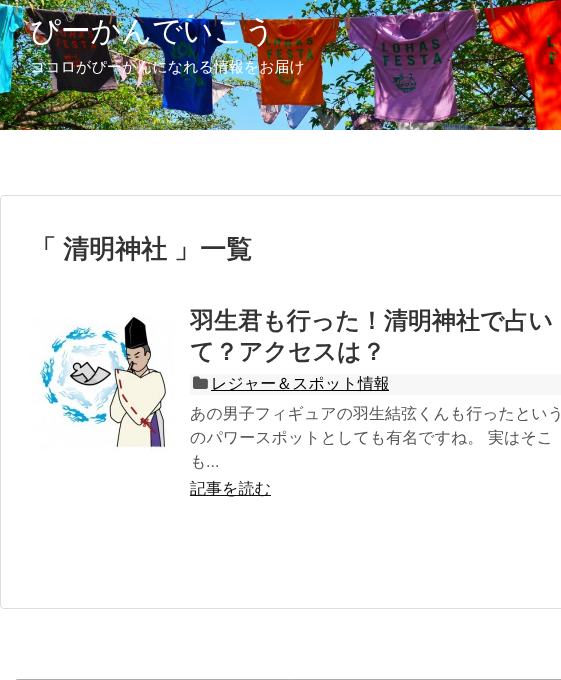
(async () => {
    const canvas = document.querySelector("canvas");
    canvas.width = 561;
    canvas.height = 680;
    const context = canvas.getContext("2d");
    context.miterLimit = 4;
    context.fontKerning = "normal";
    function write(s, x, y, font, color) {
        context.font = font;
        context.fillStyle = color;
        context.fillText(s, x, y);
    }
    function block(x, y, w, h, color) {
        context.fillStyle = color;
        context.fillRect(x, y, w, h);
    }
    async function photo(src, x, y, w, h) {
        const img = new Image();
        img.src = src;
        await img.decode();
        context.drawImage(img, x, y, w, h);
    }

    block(0, 0, 561, 680, "rgb(255, 255, 255)");
    await photo("media/1.png", 0, 0, 561, 130);
    write("ぴーかんでいこう", 30, 41, "500 30px WenQuanYi Zen Hei", "rgb(255, 255, 255)");
    write("ココロがぴーかんになれる情報をお届け", 30, 72, "500 15px WenQuanYi Zen Hei", "rgb(255, 255, 255)");
    context.beginPath();
    context.roundRect(0.5, 195.5, 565, 413, 3.5);
    context.strokeStyle = "rgb(221, 221, 221)";
    context.stroke();
    write("「", 30, 258, "bold 26px WenQuanYi Zen Hei", "rgb(51, 51, 51)");
    write("清明神社", 63, 258, "bold 26px WenQuanYi Zen Hei", "rgb(51, 51, 51)");
    write("」一覧", 174, 258, "bold 26px WenQuanYi Zen Hei", "rgb(51, 51, 51)");
    await photo("media/2.png", 30, 316, 144, 136);
    write("羽生君も行った！清明神社で占い", 190, 329, "bold 24px WenQuanYi Zen Hei", "rgb(51, 51, 51)");
    write("て？アクセスは？", 190, 360, "bold 24px WenQuanYi Zen Hei", "rgb(51, 51, 51)");
    block(190, 374, 371, 21, "rgb(247, 247, 247)");
    await photo("media/3.png", 193, 376, 15, 13);
    block(211, 390, 178, 1, "rgb(0, 0, 0)");
    write("レジャー＆スポット情報", 211, 389, "500 16px WenQuanYi Zen Hei", "rgb(0, 0, 0)");
    write("あの男子フィギュアの羽生結弦くんも行ったという", 190, 419, "500 16px WenQuanYi Zen Hei", "rgb(85, 85, 85)");
    write("のパワースポットとしても有名ですね。", 190, 443, "500 16px WenQuanYi Zen Hei", "rgb(85, 85, 85)");
    write("実はそこ", 488, 443, "500 16px WenQuanYi Zen Hei", "rgb(85, 85, 85)");
    write("も", 190, 467, "500 16px WenQuanYi Zen Hei", "rgb(85, 85, 85)");
    write("...", 206, 467, "16px Liberation Sans", "rgb(85, 85, 85)");
    block(190, 495, 81, 1, "rgb(17, 17, 17)");
    write("記事を読む", 190, 494, "500 16px WenQuanYi Zen Hei", "rgb(17, 17, 17)");
    context.beginPath();
    context.roundRect(15.5, 679.5, 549, 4, 2.5);
    context.strokeStyle = "rgb(170, 170, 170)";
    context.stroke();
})();
